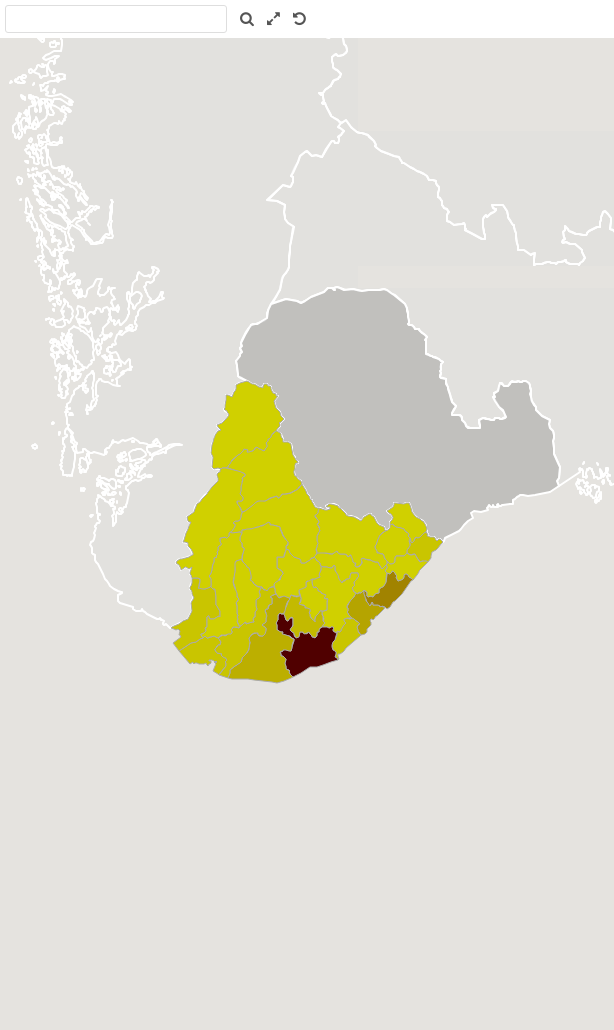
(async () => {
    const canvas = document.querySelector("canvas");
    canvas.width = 614;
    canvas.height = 1030;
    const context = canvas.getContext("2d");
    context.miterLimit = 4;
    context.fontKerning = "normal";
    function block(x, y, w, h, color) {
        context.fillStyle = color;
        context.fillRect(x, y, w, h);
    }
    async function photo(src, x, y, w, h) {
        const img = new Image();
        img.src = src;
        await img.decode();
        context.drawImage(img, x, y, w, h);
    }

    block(0, 0, 614, 1030, "rgb(255, 255, 255)");
    context.beginPath();
    context.roundRect(5.5, 5.5, 221, 27, 2.5);
    context.strokeStyle = "rgb(222, 222, 222)";
    context.stroke();
    await photo("media/1.png", 240, 12, 14, 15);
    await photo("media/2.png", 267, 12, 13, 14);
    await photo("media/3.png", 293, 12, 13, 14);
    block(0, 38, 614, 992, "rgb(229, 227, 223)");
    await photo("media/4.png", 9, 38, 93, 240);
    await photo("media/5.png", 102, 38, 256, 240);
    await photo("media/6.png", 358, 131, 256, 135);
    await photo("media/7.png", 31, 278, 71, 256);
    await photo("media/8.png", 102, 278, 256, 256);
    await photo("media/9.png", 358, 288, 256, 246);
    await photo("media/10.png", 89, 534, 13, 40);
    await photo("media/11.png", 102, 534, 256, 150);
    await photo("media/12.png", 358, 534, 97, 104);
})();
